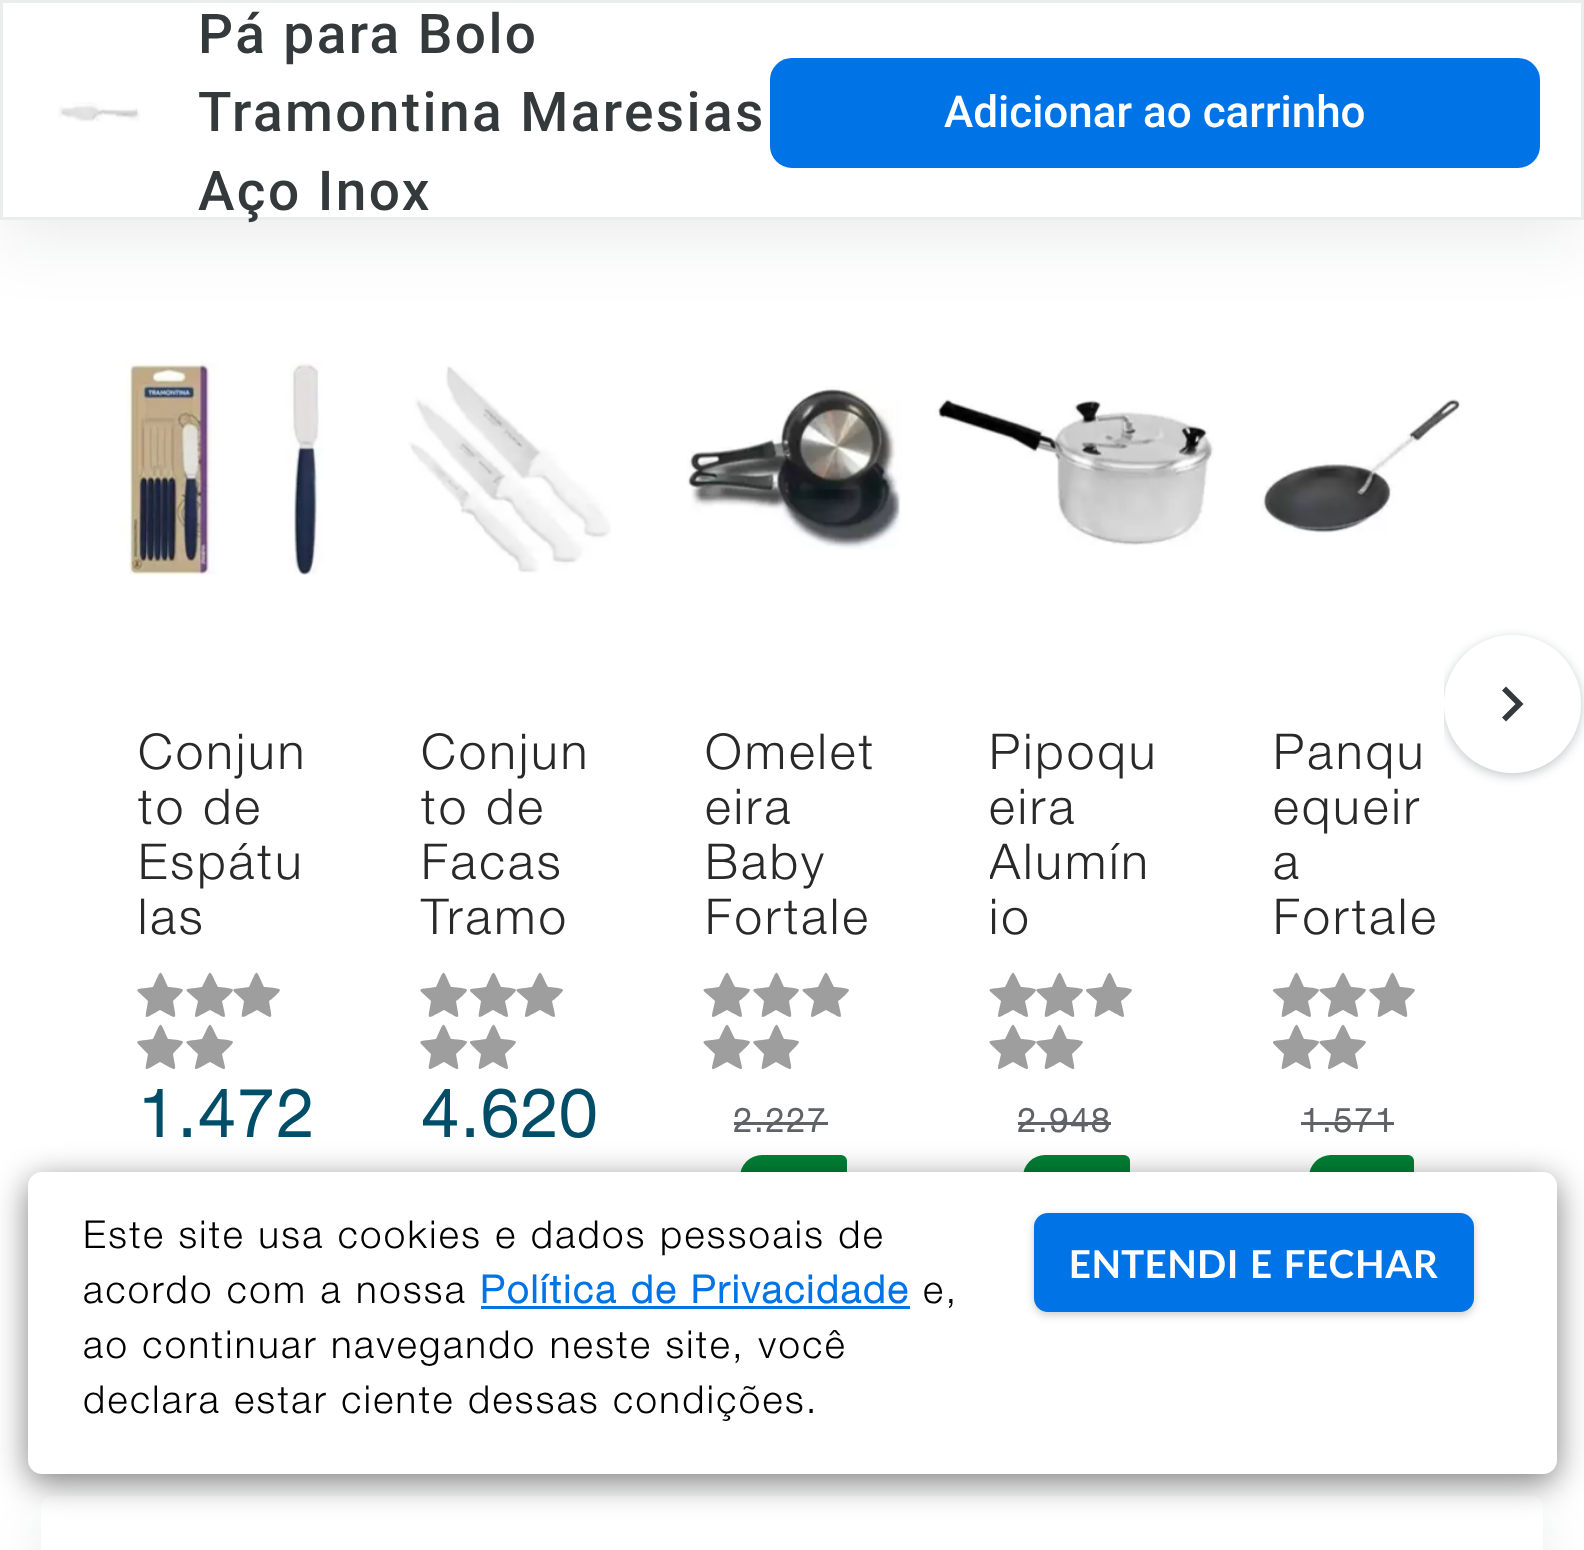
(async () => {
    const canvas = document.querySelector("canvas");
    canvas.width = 1584;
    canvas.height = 1550;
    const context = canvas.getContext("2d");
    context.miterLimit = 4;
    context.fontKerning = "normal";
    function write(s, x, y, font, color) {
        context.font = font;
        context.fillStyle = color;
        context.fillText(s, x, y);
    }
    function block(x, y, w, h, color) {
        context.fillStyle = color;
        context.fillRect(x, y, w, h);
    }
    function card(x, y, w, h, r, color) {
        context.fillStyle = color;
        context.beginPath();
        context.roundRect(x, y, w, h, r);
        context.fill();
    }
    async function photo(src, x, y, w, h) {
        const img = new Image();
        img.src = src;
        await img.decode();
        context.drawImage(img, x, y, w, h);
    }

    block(0, 0, 1584, 1550, "rgb(255, 255, 255)");
    context.fillStyle = "rgba(10, 31, 38, 0.08)";
    context.filter = "blur(33px)";
    context.beginPath();
    context.rect(0, 22, 1584, 220);
    context.fill();
    context.filter = "none";
    context.fillStyle = "rgb(255, 255, 255)";
    context.beginPath();
    context.rect(1.5, 1.5, 1581, 217);
    context.fill();
    context.strokeStyle = "rgb(235, 237, 237)";
    context.lineWidth = 3;
    context.stroke();
    await photo("media/1.png", 58, 102, 82, 20);
    context.letterSpacing = "2.4px";
    write("Pá para Bolo", 198, 53, "500 55px Roboto", "rgb(52, 57, 59)");
    write("Tramontina Maresias", 198, 131, "500 55px Roboto", "rgb(52, 57, 59)");
    write("Aço Inox", 198, 210, "500 55px Roboto", "rgb(52, 57, 59)");
    context.fillStyle = "rgb(0, 115, 230)";
    context.beginPath();
    context.roundRect(771.5, 59.5, 767, 107, 20.5);
    context.fill();
    context.strokeStyle = "rgb(0, 115, 230)";
    context.stroke();
    context.letterSpacing = "0px";
    write("Adicionar ao carrinho", 944, 127, "500 44px Roboto", "rgb(255, 255, 255)");
    context.save();
    context.beginPath();
    context.rect(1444, 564, 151, 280);
    context.clip();
    context.fillStyle = "rgba(10, 31, 38, 0.24)";
    context.filter = "blur(5.5px)";
    context.beginPath();
    context.roundRect(1444, 638, 137, 138, 68.5);
    context.fill();
    context.filter = "none";
    context.restore();
    card(1444, 635, 137, 138, 68.5, "rgb(255, 255, 255)");
    context.fillStyle = "rgb(52, 57, 59)";
    context.beginPath();
    context.moveTo(1515.5, 704);
    context.lineTo(1502, 690.5);
    context.lineTo(1506, 686.5);
    context.lineTo(1523.5, 704);
    context.lineTo(1506, 721.5);
    context.lineTo(1502, 717.5);
    context.closePath();
    context.fill();
    await photo("media/2.png", 120, 362, 204, 213);
    context.letterSpacing = "3px";
    write("Conjun", 138, 769, "300 49.5px Helvetica Neue", "rgb(41, 41, 41)");
    context.save();
    context.beginPath();
    context.rect(138, 732, 173, 220);
    context.clip();
    write("to de", 138, 824, "300 49.5px Helvetica Neue", "rgb(41, 41, 41)");
    context.restore();
    write("Espátu", 138, 879, "300 49.5px Helvetica Neue", "rgb(41, 41, 41)");
    write("las", 138, 934, "300 49.5px Helvetica Neue", "rgb(41, 41, 41)");
    context.fillStyle = "rgb(158, 158, 158)";
    context.beginPath();
    context.moveTo(183, 990);
    context.bezierCurveTo(183, 992, 174, 1000, 173, 1001);
    context.bezierCurveTo(176, 1021, 179, 1020, 160, 1010);
    context.bezierCurveTo(142, 1020, 145, 1021, 148, 1001);
    context.bezierCurveTo(134, 987, 132, 990, 153, 987);
    context.bezierCurveTo(162, 968, 159, 968, 168, 987);
    context.bezierCurveTo(170, 987, 183, 988, 183, 990);
    context.closePath();
    context.fill();
    context.beginPath();
    context.moveTo(233, 990);
    context.bezierCurveTo(233, 992, 224, 1000, 222, 1001);
    context.bezierCurveTo(226, 1021, 229, 1020, 210, 1010);
    context.bezierCurveTo(191, 1020, 194, 1021, 198, 1001);
    context.bezierCurveTo(183, 987, 181, 990, 202, 987);
    context.bezierCurveTo(212, 968, 208, 968, 218, 987);
    context.bezierCurveTo(220, 987, 233, 988, 233, 990);
    context.closePath();
    context.fill();
    context.beginPath();
    context.moveTo(280, 990);
    context.bezierCurveTo(280, 992, 271, 1000, 269, 1001);
    context.bezierCurveTo(272, 1021, 275, 1020, 257, 1010);
    context.bezierCurveTo(238, 1020, 241, 1021, 244, 1001);
    context.bezierCurveTo(230, 987, 228, 990, 249, 987);
    context.bezierCurveTo(258, 968, 255, 968, 264, 987);
    context.bezierCurveTo(267, 987, 280, 988, 280, 990);
    context.closePath();
    context.fill();
    context.beginPath();
    context.moveTo(183, 1042);
    context.bezierCurveTo(183, 1044, 174, 1052, 173, 1054);
    context.bezierCurveTo(176, 1073, 179, 1072, 160, 1062);
    context.bezierCurveTo(142, 1072, 145, 1073, 148, 1054);
    context.bezierCurveTo(134, 1039, 132, 1042, 153, 1039);
    context.bezierCurveTo(162, 1020, 159, 1020, 168, 1039);
    context.bezierCurveTo(170, 1039, 183, 1040, 183, 1042);
    context.closePath();
    context.fill();
    context.beginPath();
    context.moveTo(233, 1042);
    context.bezierCurveTo(233, 1044, 224, 1052, 222, 1054);
    context.bezierCurveTo(226, 1073, 229, 1072, 210, 1062);
    context.bezierCurveTo(191, 1072, 194, 1073, 198, 1054);
    context.bezierCurveTo(183, 1039, 181, 1042, 202, 1039);
    context.bezierCurveTo(212, 1020, 208, 1020, 218, 1039);
    context.bezierCurveTo(220, 1039, 233, 1040, 233, 1042);
    context.closePath();
    context.fill();
    context.letterSpacing = "2.4px";
    write("1.472", 138, 1137, "bold 66px Helvetica Neue", "rgb(0, 77, 104)");
    await photo("media/3.png", 408, 366, 203, 207);
    context.letterSpacing = "3px";
    write("Conjun", 421, 769, "300 49.5px Helvetica Neue", "rgb(41, 41, 41)");
    write("to de", 421, 824, "300 49.5px Helvetica Neue", "rgb(41, 41, 41)");
    write("Facas", 421, 879, "300 49.5px Helvetica Neue", "rgb(41, 41, 41)");
    write("Tramo", 421, 934, "300 49.5px Helvetica Neue", "rgb(41, 41, 41)");
    context.fillStyle = "rgb(158, 158, 158)";
    context.beginPath();
    context.moveTo(467, 990);
    context.bezierCurveTo(467, 992, 458, 1000, 456, 1001);
    context.bezierCurveTo(459, 1021, 462, 1020, 444, 1010);
    context.bezierCurveTo(425, 1020, 428, 1021, 431, 1001);
    context.bezierCurveTo(417, 987, 415, 990, 436, 987);
    context.bezierCurveTo(445, 968, 442, 968, 451, 987);
    context.bezierCurveTo(454, 987, 467, 988, 467, 990);
    context.closePath();
    context.fill();
    context.beginPath();
    context.moveTo(516, 990);
    context.bezierCurveTo(516, 992, 507, 1000, 505, 1001);
    context.bezierCurveTo(509, 1021, 512, 1020, 493, 1010);
    context.bezierCurveTo(475, 1020, 478, 1021, 481, 1001);
    context.bezierCurveTo(466, 987, 465, 990, 486, 987);
    context.bezierCurveTo(495, 968, 492, 968, 501, 987);
    context.bezierCurveTo(503, 987, 516, 988, 516, 990);
    context.closePath();
    context.fill();
    context.beginPath();
    context.moveTo(563, 990);
    context.bezierCurveTo(563, 992, 554, 1000, 552, 1001);
    context.bezierCurveTo(556, 1021, 559, 1020, 540, 1010);
    context.bezierCurveTo(521, 1020, 524, 1021, 528, 1001);
    context.bezierCurveTo(513, 987, 511, 990, 532, 987);
    context.bezierCurveTo(542, 968, 538, 968, 548, 987);
    context.bezierCurveTo(550, 987, 563, 988, 563, 990);
    context.closePath();
    context.fill();
    context.beginPath();
    context.moveTo(467, 1042);
    context.bezierCurveTo(467, 1044, 458, 1052, 456, 1054);
    context.bezierCurveTo(459, 1073, 462, 1072, 444, 1062);
    context.bezierCurveTo(425, 1072, 428, 1073, 431, 1054);
    context.bezierCurveTo(417, 1039, 415, 1042, 436, 1039);
    context.bezierCurveTo(445, 1020, 442, 1020, 451, 1039);
    context.bezierCurveTo(454, 1039, 467, 1040, 467, 1042);
    context.closePath();
    context.fill();
    context.beginPath();
    context.moveTo(516, 1042);
    context.bezierCurveTo(516, 1044, 507, 1052, 505, 1054);
    context.bezierCurveTo(509, 1073, 512, 1072, 493, 1062);
    context.bezierCurveTo(475, 1072, 478, 1073, 481, 1054);
    context.bezierCurveTo(466, 1039, 465, 1042, 486, 1039);
    context.bezierCurveTo(495, 1020, 492, 1020, 501, 1039);
    context.bezierCurveTo(503, 1039, 516, 1040, 516, 1042);
    context.closePath();
    context.fill();
    context.letterSpacing = "2.4px";
    write("4.620", 421, 1137, "bold 66px Helvetica Neue", "rgb(0, 77, 104)");
    await photo("media/4.png", 687, 386, 215, 164);
    context.letterSpacing = "3px";
    write("Omelet", 705, 769, "300 49.5px Helvetica Neue", "rgb(41, 41, 41)");
    write("eira", 705, 824, "300 49.5px Helvetica Neue", "rgb(41, 41, 41)");
    write("Baby", 705, 879, "300 49.5px Helvetica Neue", "rgb(41, 41, 41)");
    write("Fortale", 705, 934, "300 49.5px Helvetica Neue", "rgb(41, 41, 41)");
    context.fillStyle = "rgb(158, 158, 158)";
    context.beginPath();
    context.moveTo(750, 990);
    context.bezierCurveTo(750, 992, 741, 1000, 739, 1001);
    context.bezierCurveTo(743, 1021, 746, 1020, 727, 1010);
    context.bezierCurveTo(708, 1020, 711, 1021, 715, 1001);
    context.bezierCurveTo(700, 987, 698, 990, 719, 987);
    context.bezierCurveTo(729, 968, 725, 968, 735, 987);
    context.bezierCurveTo(737, 987, 750, 988, 750, 990);
    context.closePath();
    context.fill();
    context.beginPath();
    context.moveTo(799, 990);
    context.bezierCurveTo(799, 992, 790, 1000, 789, 1001);
    context.bezierCurveTo(792, 1021, 795, 1020, 776, 1010);
    context.bezierCurveTo(758, 1020, 761, 1021, 764, 1001);
    context.bezierCurveTo(750, 987, 748, 990, 769, 987);
    context.bezierCurveTo(778, 968, 775, 968, 784, 987);
    context.bezierCurveTo(786, 987, 799, 988, 799, 990);
    context.closePath();
    context.fill();
    context.beginPath();
    context.moveTo(849, 990);
    context.bezierCurveTo(849, 992, 840, 1000, 838, 1001);
    context.bezierCurveTo(842, 1021, 845, 1020, 826, 1010);
    context.bezierCurveTo(807, 1020, 810, 1021, 814, 1001);
    context.bezierCurveTo(799, 987, 797, 990, 818, 987);
    context.bezierCurveTo(828, 968, 824, 968, 834, 987);
    context.bezierCurveTo(836, 987, 849, 988, 849, 990);
    context.closePath();
    context.fill();
    context.beginPath();
    context.moveTo(750, 1042);
    context.bezierCurveTo(750, 1044, 741, 1052, 739, 1054);
    context.bezierCurveTo(743, 1073, 746, 1072, 727, 1062);
    context.bezierCurveTo(708, 1072, 711, 1073, 715, 1054);
    context.bezierCurveTo(700, 1039, 698, 1042, 719, 1039);
    context.bezierCurveTo(729, 1020, 725, 1020, 735, 1039);
    context.bezierCurveTo(737, 1039, 750, 1040, 750, 1042);
    context.closePath();
    context.fill();
    context.beginPath();
    context.moveTo(799, 1042);
    context.bezierCurveTo(799, 1044, 790, 1052, 789, 1054);
    context.bezierCurveTo(792, 1073, 795, 1072, 776, 1062);
    context.bezierCurveTo(758, 1072, 761, 1073, 764, 1054);
    context.bezierCurveTo(750, 1039, 748, 1042, 769, 1039);
    context.bezierCurveTo(778, 1020, 775, 1020, 784, 1039);
    context.bezierCurveTo(786, 1039, 799, 1040, 799, 1042);
    context.closePath();
    context.fill();
    context.letterSpacing = "2.4px";
    write("2.227", 733, 1132, "bold 33px Helvetica Neue", "rgb(95, 99, 104)");
    block(734, 1122, 94, 3, "rgb(95, 99, 104)");
    context.fillStyle = "rgb(0, 128, 53)";
    context.beginPath();
    context.roundRect(740, 1155, 107, 44, [22, 6, 6, 22]);
    context.fill();
    await photo("media/5.png", 935, 399, 279, 147);
    context.letterSpacing = "3px";
    write("Pipoqu", 989, 769, "300 49.5px Helvetica Neue", "rgb(41, 41, 41)");
    write("eira", 989, 824, "300 49.5px Helvetica Neue", "rgb(41, 41, 41)");
    context.save();
    context.beginPath();
    context.rect(990, 732, 173, 220);
    context.clip();
    write("Alumín", 989, 879, "300 49.5px Helvetica Neue", "rgb(41, 41, 41)");
    context.restore();
    write("io", 989, 934, "300 49.5px Helvetica Neue", "rgb(41, 41, 41)");
    context.fillStyle = "rgb(158, 158, 158)";
    context.beginPath();
    context.moveTo(1036, 990);
    context.bezierCurveTo(1036, 992, 1027, 1000, 1025, 1001);
    context.bezierCurveTo(1029, 1021, 1032, 1020, 1013, 1010);
    context.bezierCurveTo(994, 1020, 997, 1021, 1001, 1001);
    context.bezierCurveTo(986, 987, 984, 990, 1005, 987);
    context.bezierCurveTo(1015, 968, 1011, 968, 1021, 987);
    context.bezierCurveTo(1023, 987, 1036, 988, 1036, 990);
    context.closePath();
    context.fill();
    context.beginPath();
    context.moveTo(1083, 990);
    context.bezierCurveTo(1083, 992, 1074, 1000, 1072, 1001);
    context.bezierCurveTo(1075, 1021, 1078, 1020, 1060, 1010);
    context.bezierCurveTo(1041, 1020, 1044, 1021, 1047, 1001);
    context.bezierCurveTo(1033, 987, 1031, 990, 1052, 987);
    context.bezierCurveTo(1061, 968, 1058, 968, 1067, 987);
    context.bezierCurveTo(1070, 987, 1083, 988, 1083, 990);
    context.closePath();
    context.fill();
    context.beginPath();
    context.moveTo(1132, 990);
    context.bezierCurveTo(1132, 992, 1123, 1000, 1121, 1001);
    context.bezierCurveTo(1125, 1021, 1128, 1020, 1109, 1010);
    context.bezierCurveTo(1091, 1020, 1094, 1021, 1097, 1001);
    context.bezierCurveTo(1082, 987, 1081, 990, 1102, 987);
    context.bezierCurveTo(1111, 968, 1108, 968, 1117, 987);
    context.bezierCurveTo(1119, 987, 1132, 988, 1132, 990);
    context.closePath();
    context.fill();
    context.beginPath();
    context.moveTo(1036, 1042);
    context.bezierCurveTo(1036, 1044, 1027, 1052, 1025, 1054);
    context.bezierCurveTo(1029, 1073, 1032, 1072, 1013, 1062);
    context.bezierCurveTo(994, 1072, 997, 1073, 1001, 1054);
    context.bezierCurveTo(986, 1039, 984, 1042, 1005, 1039);
    context.bezierCurveTo(1015, 1020, 1011, 1020, 1021, 1039);
    context.bezierCurveTo(1023, 1039, 1036, 1040, 1036, 1042);
    context.closePath();
    context.fill();
    context.beginPath();
    context.moveTo(1083, 1042);
    context.bezierCurveTo(1083, 1044, 1074, 1052, 1072, 1054);
    context.bezierCurveTo(1075, 1073, 1078, 1072, 1060, 1062);
    context.bezierCurveTo(1041, 1072, 1044, 1073, 1047, 1054);
    context.bezierCurveTo(1033, 1039, 1031, 1042, 1052, 1039);
    context.bezierCurveTo(1061, 1020, 1058, 1020, 1067, 1039);
    context.bezierCurveTo(1070, 1039, 1083, 1040, 1083, 1042);
    context.closePath();
    context.fill();
    context.letterSpacing = "2.4px";
    write("2.948", 1017, 1132, "bold 33px Helvetica Neue", "rgb(95, 99, 104)");
    block(1018, 1122, 93, 3, "rgb(95, 99, 104)");
    context.fillStyle = "rgb(0, 128, 53)";
    context.beginPath();
    context.roundRect(1023, 1155, 107, 44, [22, 6, 6, 22]);
    context.fill();
    await photo("media/6.png", 1261, 399, 199, 134);
    context.letterSpacing = "3px";
    write("Panqu", 1273, 769, "300 49.5px Helvetica Neue", "rgb(41, 41, 41)");
    write("equeir", 1273, 824, "300 49.5px Helvetica Neue", "rgb(41, 41, 41)");
    write("a", 1273, 879, "300 49.5px Helvetica Neue", "rgb(41, 41, 41)");
    write("Fortale", 1273, 934, "300 49.5px Helvetica Neue", "rgb(41, 41, 41)");
    context.fillStyle = "rgb(158, 158, 158)";
    context.beginPath();
    context.moveTo(1319, 990);
    context.bezierCurveTo(1319, 992, 1310, 1000, 1308, 1001);
    context.bezierCurveTo(1312, 1021, 1315, 1020, 1296, 1010);
    context.bezierCurveTo(1278, 1020, 1281, 1021, 1284, 1001);
    context.bezierCurveTo(1269, 987, 1268, 990, 1289, 987);
    context.bezierCurveTo(1298, 968, 1295, 968, 1304, 987);
    context.bezierCurveTo(1306, 987, 1319, 988, 1319, 990);
    context.closePath();
    context.fill();
    context.beginPath();
    context.moveTo(1366, 990);
    context.bezierCurveTo(1366, 992, 1357, 1000, 1355, 1001);
    context.bezierCurveTo(1359, 1021, 1362, 1020, 1343, 1010);
    context.bezierCurveTo(1324, 1020, 1327, 1021, 1331, 1001);
    context.bezierCurveTo(1316, 987, 1314, 990, 1335, 987);
    context.bezierCurveTo(1345, 968, 1341, 968, 1351, 987);
    context.bezierCurveTo(1353, 987, 1366, 988, 1366, 990);
    context.closePath();
    context.fill();
    context.beginPath();
    context.moveTo(1415, 990);
    context.bezierCurveTo(1415, 992, 1406, 1000, 1405, 1001);
    context.bezierCurveTo(1408, 1021, 1411, 1020, 1392, 1010);
    context.bezierCurveTo(1374, 1020, 1377, 1021, 1380, 1001);
    context.bezierCurveTo(1366, 987, 1364, 990, 1385, 987);
    context.bezierCurveTo(1394, 968, 1391, 968, 1400, 987);
    context.bezierCurveTo(1402, 987, 1415, 988, 1415, 990);
    context.closePath();
    context.fill();
    context.beginPath();
    context.moveTo(1319, 1042);
    context.bezierCurveTo(1319, 1044, 1310, 1052, 1308, 1054);
    context.bezierCurveTo(1312, 1073, 1315, 1072, 1296, 1062);
    context.bezierCurveTo(1278, 1072, 1281, 1073, 1284, 1054);
    context.bezierCurveTo(1269, 1039, 1268, 1042, 1289, 1039);
    context.bezierCurveTo(1298, 1020, 1295, 1020, 1304, 1039);
    context.bezierCurveTo(1306, 1039, 1319, 1040, 1319, 1042);
    context.closePath();
    context.fill();
    context.beginPath();
    context.moveTo(1366, 1042);
    context.bezierCurveTo(1366, 1044, 1357, 1052, 1355, 1054);
    context.bezierCurveTo(1359, 1073, 1362, 1072, 1343, 1062);
    context.bezierCurveTo(1324, 1072, 1327, 1073, 1331, 1054);
    context.bezierCurveTo(1316, 1039, 1314, 1042, 1335, 1039);
    context.bezierCurveTo(1345, 1020, 1341, 1020, 1351, 1039);
    context.bezierCurveTo(1353, 1039, 1366, 1040, 1366, 1042);
    context.closePath();
    context.fill();
    context.letterSpacing = "2.4px";
    write("1.571", 1301, 1132, "bold 33px Helvetica Neue", "rgb(95, 99, 104)");
    block(1301, 1122, 93, 3, "rgb(95, 99, 104)");
    context.fillStyle = "rgb(0, 128, 53)";
    context.beginPath();
    context.roundRect(1309, 1155, 105, 44, [22, 6, 6, 22]);
    context.fill();
    context.fillStyle = "rgba(10, 31, 38, 0.08)";
    context.filter = "blur(22px)";
    context.beginPath();
    context.roundRect(41, 1507, 1502, 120, 11);
    context.fill();
    context.filter = "none";
    card(41, 1496, 1502, 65, 11, "rgb(255, 255, 255)");
    context.fillStyle = "rgba(0, 0, 0, 0.5)";
    context.filter = "blur(16.5px)";
    context.beginPath();
    context.roundRect(28, 1180, 1529, 302, 14);
    context.fill();
    context.filter = "none";
    card(28, 1172, 1529, 302, 14, "rgb(255, 255, 255)");
    write("Este site usa cookies e dados pessoais de", 83, 1248, "300 38.5px Helvetica Neue", "rgb(0, 0, 0)");
    write("acordo com a nossa", 83, 1303, "300 38.5px Helvetica Neue", "rgb(0, 0, 0)");
    write("Política de Privacidade", 480, 1303, "bold 38.5px Helvetica Neue", "rgb(0, 115, 230)");
    block(481, 1306, 429, 3, "rgb(0, 115, 230)");
    write("e,", 923, 1303, "300 38.5px Helvetica Neue", "rgb(0, 0, 0)");
    write("ao continuar navegando neste site, você", 83, 1358, "300 38.5px Helvetica Neue", "rgb(0, 0, 0)");
    write("declara estar ciente dessas condições.", 83, 1413, "300 38.5px Helvetica Neue", "rgb(0, 0, 0)");
    context.fillStyle = "rgba(0, 0, 0, 0.2)";
    context.filter = "blur(4px)";
    context.beginPath();
    context.roundRect(1034, 1216, 440, 99, 14);
    context.fill();
    context.filter = "none";
    context.fillStyle = "rgb(0, 115, 230)";
    context.beginPath();
    context.roundRect(1035.5, 1214.5, 437, 96, 12.5);
    context.fill();
    context.stroke();
    context.letterSpacing = "0.6px";
    context.wordSpacing = "3px";
    write("ENTENDI E FECHAR", 1069, 1278, "bold 38.5px Lato", "rgb(255, 255, 255)");
})();
